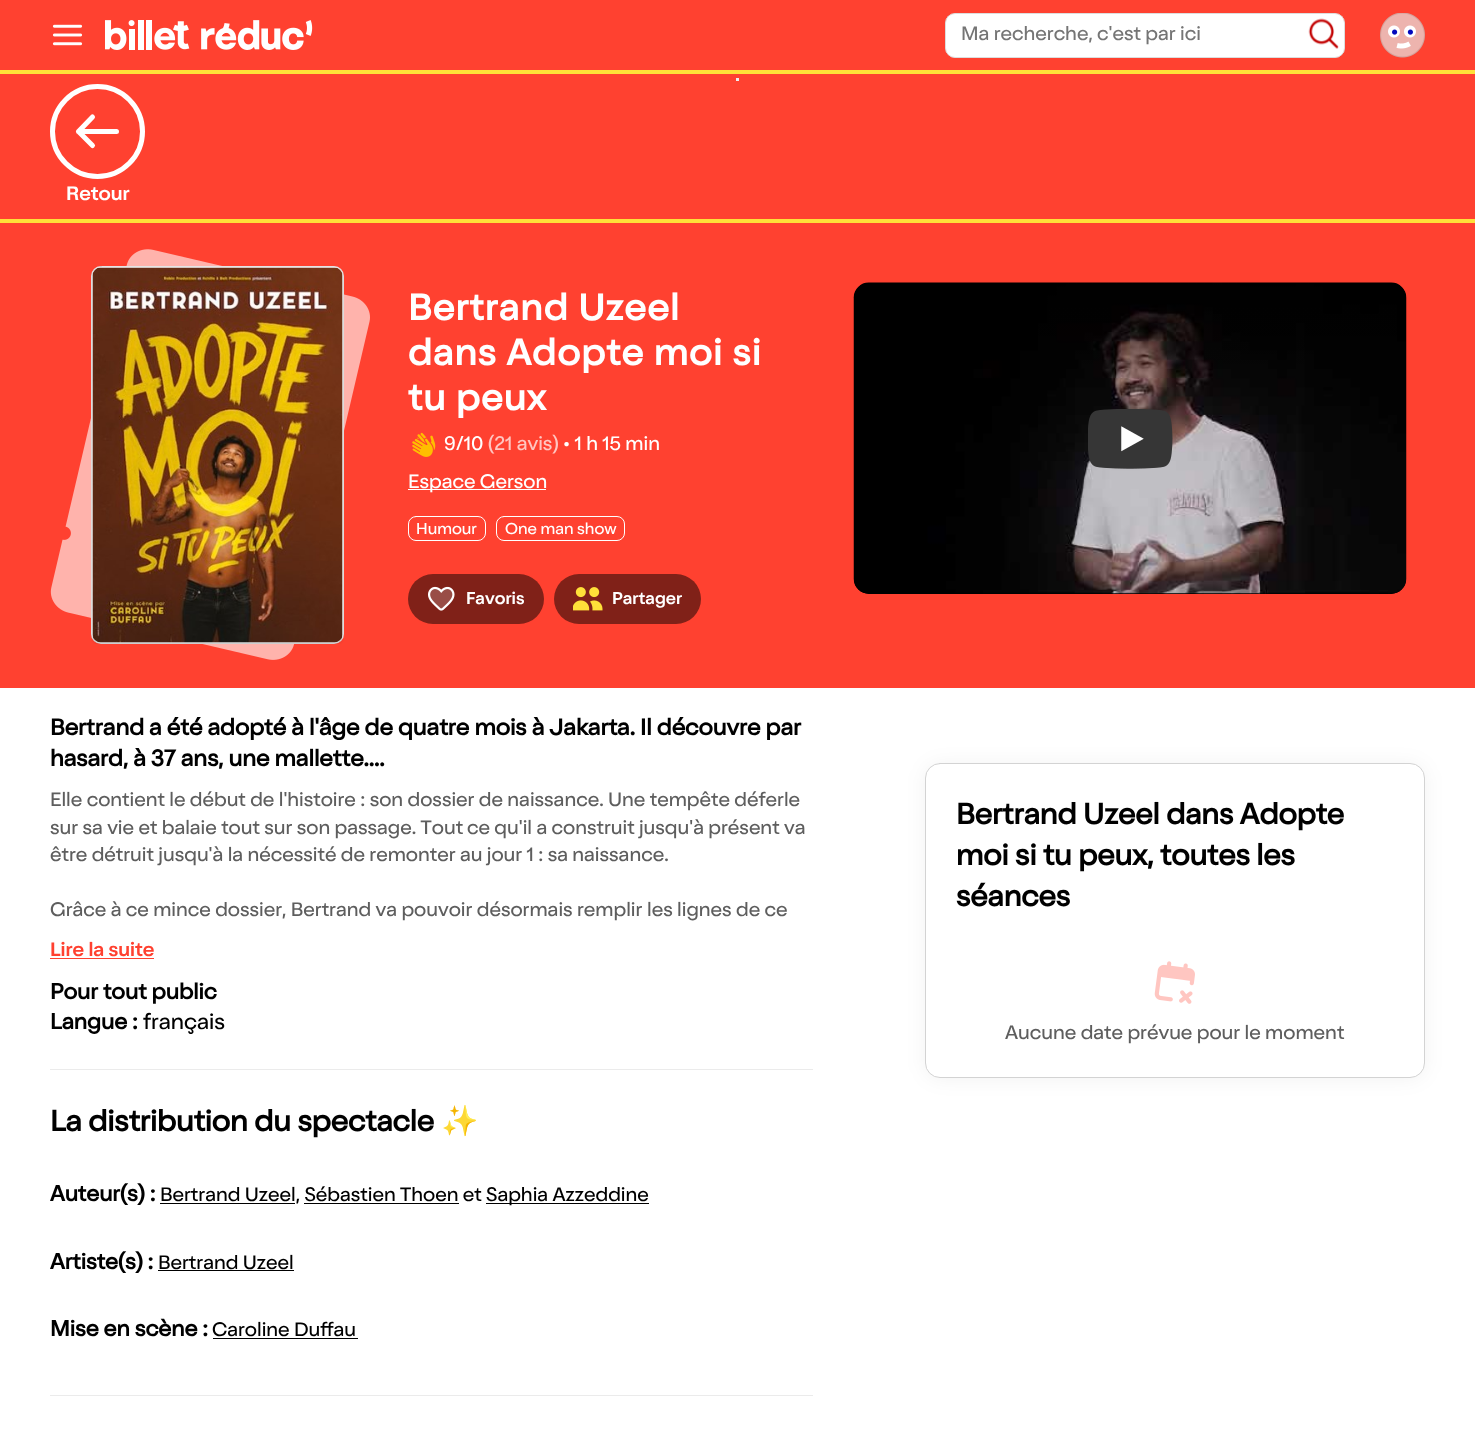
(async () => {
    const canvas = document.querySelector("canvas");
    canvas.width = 1475;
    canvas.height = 1442;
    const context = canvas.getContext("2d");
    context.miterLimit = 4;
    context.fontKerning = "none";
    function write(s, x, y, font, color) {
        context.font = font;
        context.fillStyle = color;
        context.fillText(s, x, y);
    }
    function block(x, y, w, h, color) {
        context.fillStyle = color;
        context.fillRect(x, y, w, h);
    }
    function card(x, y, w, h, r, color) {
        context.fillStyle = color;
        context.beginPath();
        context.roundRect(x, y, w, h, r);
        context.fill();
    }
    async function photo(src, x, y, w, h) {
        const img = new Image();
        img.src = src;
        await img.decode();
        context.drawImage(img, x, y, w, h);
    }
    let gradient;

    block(0, 0, 1475, 1442, "rgb(255, 255, 255)");
    block(0, 0, 1475, 70, "rgb(255, 65, 48)");
    block(0, 70, 1475, 4, "rgb(255, 224, 57)");
    await photo("media/1.png", 52, 24, 31, 22);
    await photo("media/2.png", 105, 20, 208, 30);
    context.fillStyle = "rgb(255, 255, 255)";
    context.beginPath();
    context.roundRect(945.5, 13.5, 399, 44, 9.5);
    context.fill();
    context.strokeStyle = "rgb(221, 221, 221)";
    context.stroke();
    write("Ma recherche, c'est par ici", 961, 40, "20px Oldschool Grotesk", "rgb(117, 117, 117)");
    await photo("media/3.png", 1308, 18, 31, 31);
    await photo("media/4.png", 1380, 13, 45, 45);
    block(0, 74, 1475, 614, "rgb(255, 65, 48)");
    block(0, 219, 1475, 4, "rgb(255, 224, 57)");
    block(736, 78, 3, 3, "rgb(238, 238, 238)");
    context.beginPath();
    context.arc(97.5, 131.5, 45, 0, Math.PI * 2);
    context.strokeStyle = "rgb(255, 255, 255)";
    context.lineWidth = 5;
    context.stroke();
    context.beginPath();
    context.moveTo(92.5, 145.5);
    context.lineTo(78.5, 131.5);
    context.moveTo(78.5, 131.5);
    context.lineTo(92.5, 117);
    context.moveTo(78.5, 131.5);
    context.lineTo(116.5, 131.5);
    context.lineCap = "round";
    context.lineJoin = "round";
    context.stroke();
    write("Retour", 66, 200, "500 20px Oldschool Grotesk", "rgb(255, 255, 255)");
    await photo("media/5.png", 50, 249, 320, 411);
    card(91, 266, 253, 378, 10, "rgb(255, 255, 255)");
    context.beginPath();
    context.roundRect(91.5, 266.5, 252, 377, 9.5);
    context.strokeStyle = "rgba(0, 0, 0, 0.1)";
    context.lineWidth = 1;
    context.lineJoin = "miter";
    context.stroke();
    await photo("media/6.png", 91, 267, 253, 377);
    context.letterSpacing = "1.25px";
    write("Bertrand Uzeel", 408, 320, "bold 37.5px Oldschool Grotesk", "rgb(255, 255, 255)");
    write("dans Adopte moi si", 408, 365, "bold 37.5px Oldschool Grotesk", "rgb(255, 255, 255)");
    write("tu peux", 408, 410, "bold 37.5px Oldschool Grotesk", "rgb(255, 255, 255)");
    await photo("media/7.png", 412, 432, 24, 25);
    context.letterSpacing = "0px";
    write("9/10", 444, 450, "20px Oldschool Grotesk", "rgb(255, 255, 255)");
    write("(21 avis)", 488, 450, "20px Oldschool Grotesk", "rgb(255, 198, 193)");
    write("• 1 h 15 min", 563, 450, "20px Oldschool Grotesk", "rgb(255, 255, 255)");
    block(408, 489, 138, 1, "rgb(255, 255, 255)");
    write("Espace Gerson", 408, 488, "20px Oldschool Grotesk", "rgb(255, 255, 255)");
    context.beginPath();
    context.roundRect(408.5, 516.5, 77, 24, 7.5);
    context.strokeStyle = "rgb(255, 255, 255)";
    context.stroke();
    write("Humour", 416, 534, "16.25px Oldschool Grotesk", "rgb(255, 255, 255)");
    context.beginPath();
    context.roundRect(496.5, 516.5, 128, 24, 7.5);
    context.stroke();
    write("One man show", 505, 534, "16.25px Oldschool Grotesk", "rgb(255, 255, 255)");
    card(408, 574, 136, 50, 25, "rgb(128, 33, 24)");
    await photo("media/8.png", 428, 586, 27, 25);
    write("Favoris", 466, 604, "500 17.5px Oldschool Grotesk", "rgb(255, 255, 255)");
    card(554, 574, 147, 50, 25, "rgb(128, 33, 24)");
    await photo("media/9.png", 573, 587, 30, 24);
    write("Partager", 612, 604, "500 17.5px Oldschool Grotesk", "rgb(255, 255, 255)");
    card(854, 283, 552, 311, 15, "rgb(0, 0, 0)");
    await photo("media/10.png", 853, 282, 554, 312);
    gradient = context.createLinearGradient(1130, 282, 1130, 406);
    gradient.addColorStop(0, "rgba(0, 0, 0, 0.67)");
    gradient.addColorStop(0.14, "rgba(0, 0, 0, 0.54)");
    gradient.addColorStop(0.54, "rgba(0, 0, 0, 0.15)");
    gradient.addColorStop(0.72, "rgba(0, 0, 0, 0.05)");
    gradient.addColorStop(0.94, "rgba(0, 0, 0, 0)");
    context.fillStyle = gradient;
    context.beginPath();
    context.roundRect(854, 283, 552, 123, [15, 15, 0, 0]);
    context.fill();
    await photo("media/11.png", 1088, 409, 85, 60);
    write("Bertrand a été adopté à l'âge de quatre mois à Jakarta. Il découvre par", 50, 735, "bold 23.4px Oldschool Grotesk", "rgb(0, 0, 0)");
    write("hasard, à 37 ans, une mallette....", 50, 766, "bold 23.4px Oldschool Grotesk", "rgb(0, 0, 0)");
    write("Elle contient le début de l'histoire : son dossier de naissance. Une tempête déferle", 50, 806, "20px Oldschool Grotesk", "rgb(94, 94, 94)");
    write("sur sa vie et balaie tout sur son passage. Tout", 50, 834, "20px Oldschool Grotesk", "rgb(94, 94, 94)");
    write("ce qu'il a construit jusqu'à présent va", 467, 834, "20px Oldschool Grotesk", "rgb(94, 94, 94)");
    write("être détruit jusqu'à la nécessité de remonter au jour 1 : sa naissance.", 50, 861, "20px Oldschool Grotesk", "rgb(94, 94, 94)");
    write("Grâce à ce mince dossier, Bertrand va pouvoir désormais remplir", 50, 916, "20px Oldschool Grotesk", "rgb(94, 94, 94)");
    write("les lignes de ce", 647, 916, "20px Oldschool Grotesk", "rgb(94, 94, 94)");
    write("Lire la suite", 50, 956, "500 20px Oldschool Grotesk", "rgb(255, 65, 48)");
    block(50, 958, 104, 1, "rgb(255, 65, 48)");
    write("Pour tout public", 50, 999, "bold 22.5px Oldschool Grotesk", "rgb(0, 0, 0)");
    write("Langue :", 50, 1029, "bold 22.5px Oldschool Grotesk", "rgb(0, 0, 0)");
    write("français", 143, 1029, "22.5px Oldschool Grotesk", "rgb(0, 0, 0)");
    block(50, 1069, 763, 1, "rgb(235, 235, 235)");
    write("La distribution du spectacle", 50, 1131, "bold 30px Oldschool Grotesk", "rgb(0, 0, 0)");
    write("✨", 441, 1131, "bold 30px Noto Color Emoji", "rgb(0, 0, 0)");
    write("Auteur(s) :", 50, 1201, "bold 22.5px Oldschool Grotesk", "rgb(0, 0, 0)");
    block(160, 1203, 135, 1, "rgb(0, 0, 0)");
    write("Bertrand Uzeel, Sébastien Thoen et", 160, 1201, "20px Oldschool Grotesk", "rgb(0, 0, 0)");
    block(486, 1203, 163, 1, "rgb(0, 0, 0)");
    write("Saphia Azzeddine", 486, 1201, "20px Oldschool Grotesk", "rgb(0, 0, 0)");
    block(304, 1203, 155, 1, "rgb(0, 0, 0)");
    write("Artiste(s) :", 50, 1269, "bold 22.5px Oldschool Grotesk", "rgb(0, 0, 0)");
    write("Bertrand Uzeel", 158, 1269, "20px Oldschool Grotesk", "rgb(0, 0, 0)");
    block(158, 1270, 136, 1, "rgb(0, 0, 0)");
    write("Mise en scène :", 50, 1336, "bold 22.5px Oldschool Grotesk", "rgb(0, 0, 0)");
    write("Caroline Duffau", 212, 1336, "20px Oldschool Grotesk", "rgb(0, 0, 0)");
    block(213, 1338, 145, 1, "rgb(0, 0, 0)");
    block(50, 1395, 763, 1, "rgb(235, 235, 235)");
    context.fillStyle = "rgba(0, 0, 0, 0.05)";
    context.filter = "blur(10px)";
    context.beginPath();
    context.roundRect(925, 764, 500, 315, 15);
    context.fill();
    context.filter = "none";
    context.fillStyle = "rgb(255, 255, 255)";
    context.beginPath();
    context.roundRect(925.5, 763.5, 499, 314, 14.5);
    context.fill();
    context.strokeStyle = "rgb(211, 211, 211)";
    context.stroke();
    write("Bertrand Uzeel dans Adopte", 956, 824, "bold 30px Oldschool Grotesk", "rgb(0, 0, 0)");
    write("moi si tu peux, toutes les", 956, 865, "bold 30px Oldschool Grotesk", "rgb(0, 0, 0)");
    write("séances", 956, 906, "bold 30px Oldschool Grotesk", "rgb(0, 0, 0)");
    await photo("media/12.png", 1154, 961, 41, 43);
    write("Aucune date prévue pour le moment", 1005, 1039, "20px Oldschool Grotesk", "rgb(94, 94, 94)");
})();
